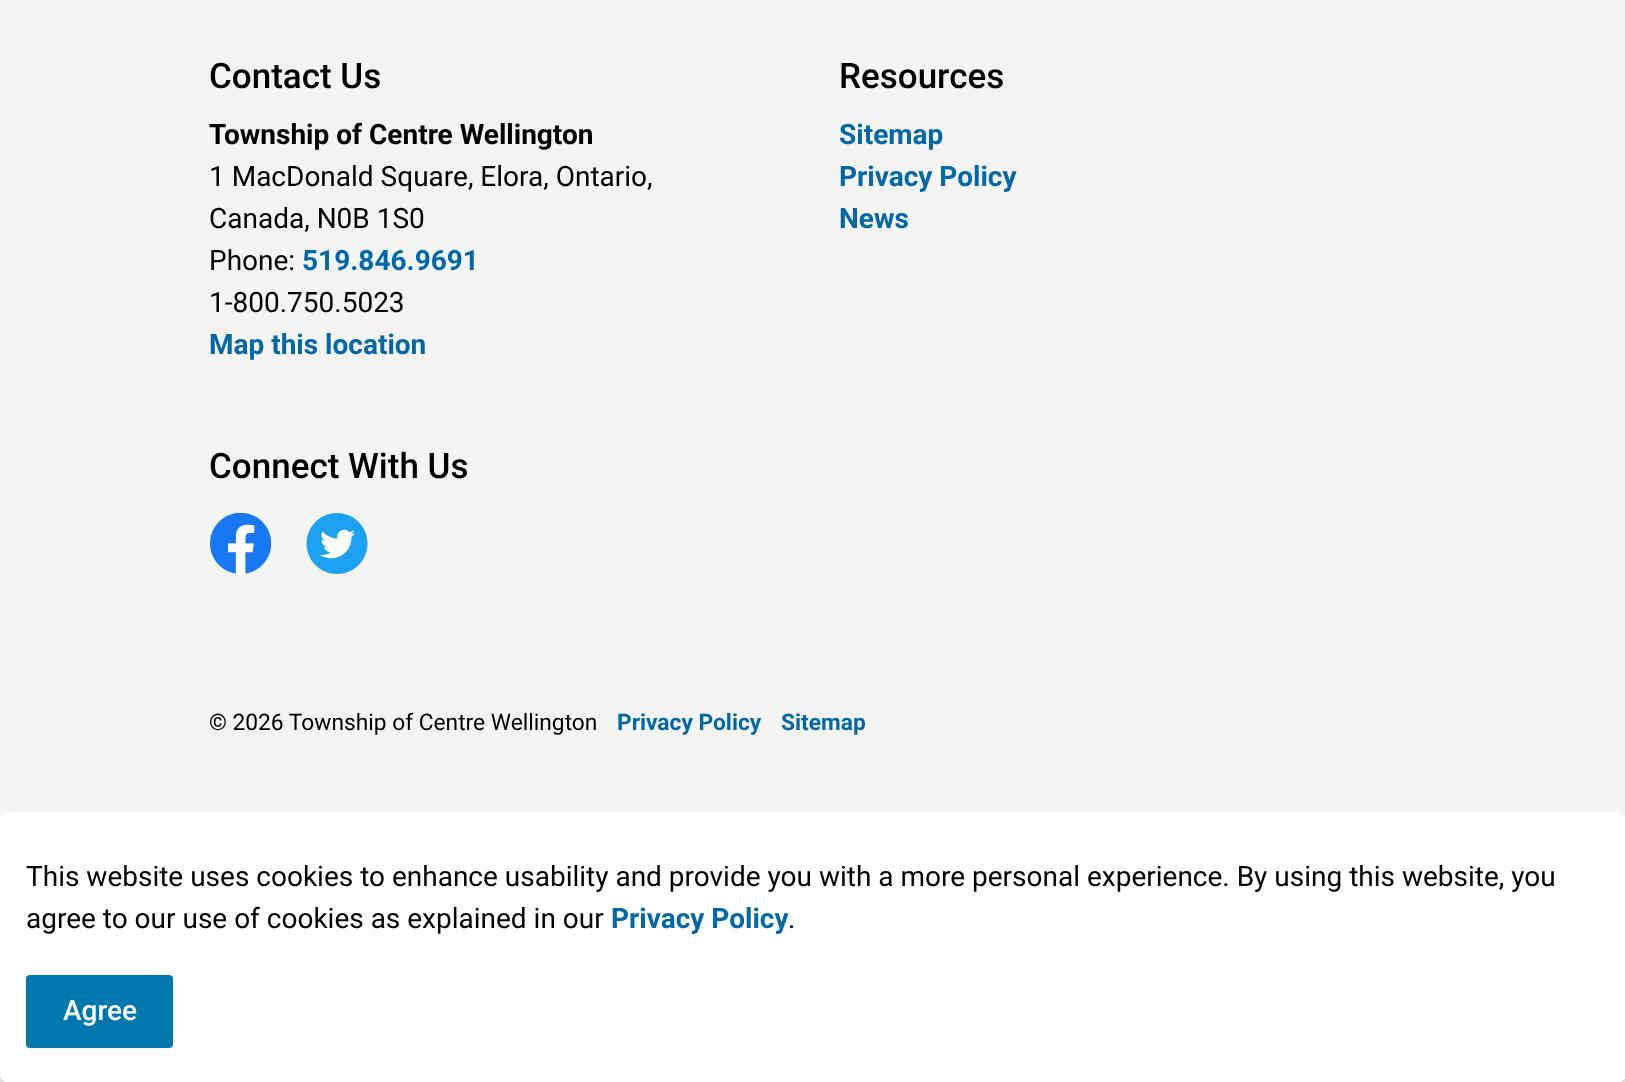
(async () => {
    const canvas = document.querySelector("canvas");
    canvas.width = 1625;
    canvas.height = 1082;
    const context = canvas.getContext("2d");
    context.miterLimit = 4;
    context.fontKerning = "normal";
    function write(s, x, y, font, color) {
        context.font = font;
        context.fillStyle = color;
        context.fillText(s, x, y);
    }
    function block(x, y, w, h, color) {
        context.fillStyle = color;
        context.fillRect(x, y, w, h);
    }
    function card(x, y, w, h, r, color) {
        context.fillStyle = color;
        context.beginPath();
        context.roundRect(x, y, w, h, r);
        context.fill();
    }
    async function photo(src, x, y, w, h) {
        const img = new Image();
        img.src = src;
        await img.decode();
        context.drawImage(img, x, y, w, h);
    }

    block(0, 0, 1625, 1082, "rgb(245, 244, 245)");
    write("Contact Us", 209, 88, "500 35px Roboto", "rgb(0, 0, 0)");
    write("Township of Centre Wellington", 209, 144, "bold 28px Roboto", "rgb(0, 0, 0)");
    write("1 MacDonald Square, Elora, Ontario,", 209, 186, "28px Roboto", "rgb(0, 0, 0)");
    write("Canada, N0B 1S0", 209, 228, "28px Roboto", "rgb(0, 0, 0)");
    write("Phone:", 209, 270, "28px Roboto", "rgb(0, 0, 0)");
    write("519.846.9691", 302, 270, "bold 28px Roboto", "rgb(0, 104, 168)");
    write("1-800.750.5023", 209, 312, "28px Roboto", "rgb(0, 0, 0)");
    write("Map this location", 209, 354, "bold 28px Roboto", "rgb(0, 104, 168)");
    write("Resources", 839, 88, "500 35px Roboto", "rgb(0, 0, 0)");
    write("Sitemap", 839, 144, "bold 28px Roboto", "rgb(0, 104, 168)");
    write("Privacy Policy", 839, 186, "bold 28px Roboto", "rgb(0, 104, 168)");
    write("News", 839, 228, "bold 28px Roboto", "rgb(0, 104, 168)");
    write("Connect With Us", 209, 478, "500 35px Roboto", "rgb(0, 0, 0)");
    await photo("media/1.png", 210, 513, 61, 61);
    await photo("media/2.png", 306, 513, 62, 61);
    write("© 2026 Township of Centre Wellington", 209, 730, "22.75px Roboto", "rgb(0, 0, 0)");
    write("Privacy Policy", 617, 730, "bold 22.75px Roboto", "rgb(0, 104, 168)");
    write("Sitemap", 781, 730, "bold 22.75px Roboto", "rgb(0, 104, 168)");
    context.fillStyle = "rgba(0, 0, 0, 0.1)";
    context.filter = "blur(1px)";
    context.beginPath();
    context.roundRect(0, 819, 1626, 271, 9);
    context.fill();
    context.filter = "none";
    card(0, 812, 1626, 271, 9, "rgb(255, 255, 255)");
    write("This website uses cookies to enhance usability and provide you with a more personal experience. By using this website, you", 26, 886, "28px Roboto", "rgb(0, 0, 0)");
    write("agree to our use of cookies as explained in our", 26, 928, "28px Roboto", "rgb(0, 0, 0)");
    write("Privacy Policy", 611, 928, "bold 28px Roboto", "rgb(0, 104, 168)");
    write(".", 788, 928, "28px Roboto", "rgb(0, 0, 0)");
    context.fillStyle = "rgb(0, 120, 174)";
    context.beginPath();
    context.roundRect(27, 976, 145, 71, 3);
    context.fill();
    context.strokeStyle = "rgb(0, 120, 174)";
    context.lineWidth = 2;
    context.stroke();
    write("Agree", 63, 1020, "500 28px Roboto", "rgb(255, 255, 255)");
})();
